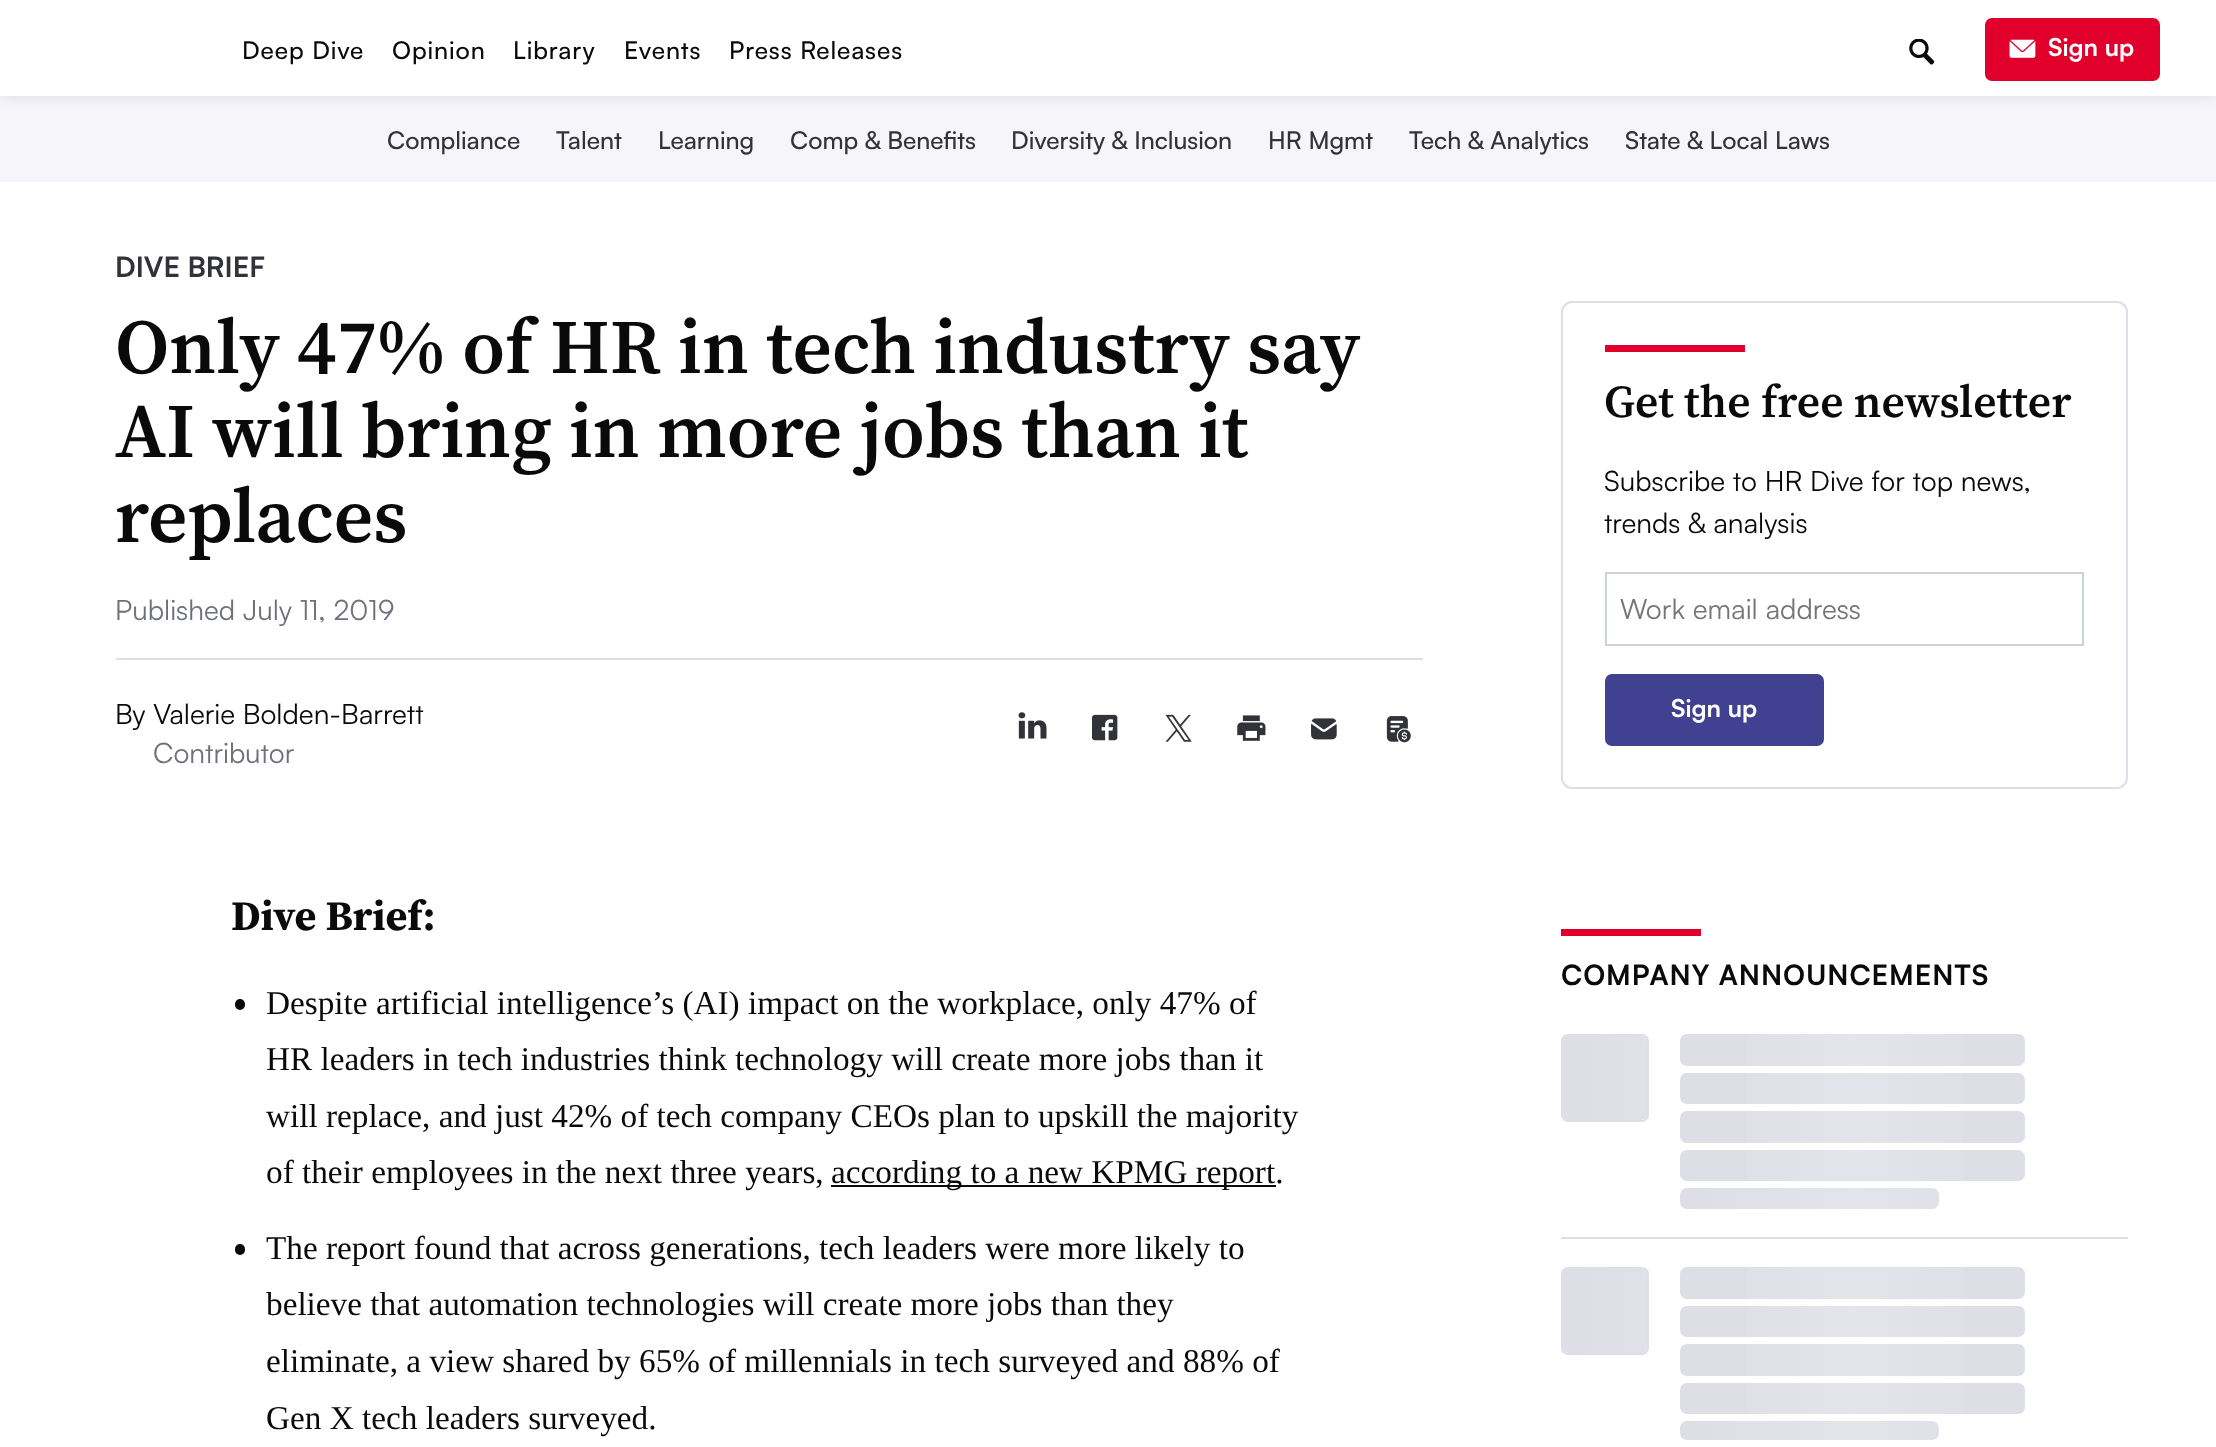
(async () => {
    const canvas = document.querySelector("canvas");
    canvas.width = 2216;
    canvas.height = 1447;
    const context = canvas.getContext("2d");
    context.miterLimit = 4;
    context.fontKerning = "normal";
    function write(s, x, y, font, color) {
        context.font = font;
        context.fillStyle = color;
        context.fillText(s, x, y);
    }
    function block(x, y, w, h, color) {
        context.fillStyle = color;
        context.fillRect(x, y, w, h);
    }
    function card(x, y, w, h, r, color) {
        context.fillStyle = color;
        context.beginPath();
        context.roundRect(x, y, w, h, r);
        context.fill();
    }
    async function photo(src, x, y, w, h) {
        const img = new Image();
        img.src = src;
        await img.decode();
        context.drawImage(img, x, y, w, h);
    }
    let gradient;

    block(0, 0, 2216, 1447, "rgb(255, 255, 255)");
    block(0, 96, 2216, 86, "rgb(245, 245, 250)");
    context.fillStyle = "rgba(120, 120, 140, 0.2)";
    context.filter = "blur(7px)";
    context.beginPath();
    context.rect(0, 0, 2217, 96);
    context.fill();
    context.filter = "none";
    block(0, 0, 2216, 96, "rgb(255, 255, 255)");
    context.letterSpacing = "0.9px";
    write("Deep Dive", 242, 59, "500 24.5px Satoshi", "rgb(10, 10, 10)");
    write("Opinion", 392, 59, "500 24.5px Satoshi", "rgb(10, 10, 10)");
    write("Library", 513, 59, "500 24.5px Satoshi", "rgb(10, 10, 10)");
    write("Events", 624, 59, "500 24.5px Satoshi", "rgb(10, 10, 10)");
    write("Press Releases", 729, 59, "500 24.5px Satoshi", "rgb(10, 10, 10)");
    await photo("media/1.png", 1909, 39, 26, 26);
    card(1985, 18, 175, 63, 7, "rgb(224, 0, 43)");
    await photo("media/2.png", 2009, 39, 27, 19);
    context.letterSpacing = "0px";
    write("Sign up", 2048, 56, "bold 24.5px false", "rgb(255, 255, 255)");
    write("Compliance", 387, 149, "500 24.5px Satoshi", "rgb(50, 50, 57)");
    write("Talent", 556, 149, "500 24.5px Satoshi", "rgb(50, 50, 57)");
    write("Learning", 658, 149, "500 24.5px Satoshi", "rgb(50, 50, 57)");
    write("Comp & Benefits", 790, 149, "500 24.5px Satoshi", "rgb(50, 50, 57)");
    write("Diversity & Inclusion", 1011, 149, "500 24.5px Satoshi", "rgb(50, 50, 57)");
    write("HR Mgmt", 1268, 149, "500 24.5px Satoshi", "rgb(50, 50, 57)");
    write("Tech & Analytics", 1409, 149, "500 24.5px Satoshi", "rgb(50, 50, 57)");
    write("State & Local Laws", 1625, 149, "500 24.5px Satoshi", "rgb(50, 50, 57)");
    write("DIVE BRIEF", 115, 277, "bold 28px false", "rgb(50, 50, 57)");
    write("Only 47% of HR in tech industry say", 115, 373, "600 77px 'Source Serif 4'", "rgb(10, 10, 10)");
    write("AI will bring in more jobs than it", 115, 457, "600 77px 'Source Serif 4'", "rgb(10, 10, 10)");
    write("replaces", 115, 542, "600 77px 'Source Serif 4'", "rgb(10, 10, 10)");
    block(116, 658, 1307, 2, "rgb(221, 222, 230)");
    write("Published July 11, 2019", 115, 620, "28px false", "rgb(110, 112, 124)");
    write("By Valerie Bolden-Barrett", 115, 724, "28px false", "rgb(10, 10, 10)");
    write("Contributor", 153, 763, "28px false", "rgb(110, 112, 124)");
    await photo("media/3.png", 1018, 712, 29, 27);
    await photo("media/4.png", 1092, 714, 26, 27);
    await photo("media/5.png", 1165, 714, 27, 28);
    await photo("media/6.png", 1237, 715, 29, 26);
    await photo("media/7.png", 1311, 718, 26, 22);
    await photo("media/8.png", 1386, 716, 25, 27);
    write("Dive Brief:", 231, 930, "bold 42px 'Source Serif 4'", "rgb(10, 10, 10)");
    card(235, 999, 10, 11, 5, "rgb(10, 10, 10)");
    write("Despite artificial intelligence’s (AI) impact on the workplace, only 47% of", 266, 1014, "33.25px Liberation Serif", "rgb(10, 10, 10)");
    write("HR leaders in tech industries think technology will create more jobs than it", 266, 1070, "33.25px Liberation Serif", "rgb(10, 10, 10)");
    write("will replace, and just 42% of tech company CEOs plan to upskill the majority", 266, 1127, "33.25px Liberation Serif", "rgb(10, 10, 10)");
    write("of their employees in the next three years,", 266, 1183, "33.25px Liberation Serif", "rgb(10, 10, 10)");
    block(831, 1185, 445, 2, "rgb(10, 10, 10)");
    write("according to a new KPMG report.", 831, 1183, "33.25px Liberation Serif", "rgb(10, 10, 10)");
    card(235, 1244, 10, 11, 5, "rgb(10, 10, 10)");
    write("The report found that across generations, tech leaders were more likely to", 266, 1259, "33.25px Liberation Serif", "rgb(10, 10, 10)");
    write("believe that automation technologies will create more jobs than they", 266, 1315, "33.25px Liberation Serif", "rgb(10, 10, 10)");
    write("eliminate, a view shared by 65% of millennials in tech surveyed and 88% of", 266, 1372, "33.25px Liberation Serif", "rgb(10, 10, 10)");
    write("Gen X tech leaders surveyed.", 266, 1429, "33.25px Liberation Serif", "rgb(10, 10, 10)");
    context.beginPath();
    context.roundRect(1562, 302, 565, 486, 10);
    context.strokeStyle = "rgb(221, 222, 230)";
    context.lineWidth = 2;
    context.stroke();
    block(1605, 345, 140, 7, "rgb(224, 0, 43)");
    write("Get the free newsletter", 1604, 417, "600 45.5px 'Source Serif 4'", "rgb(10, 10, 10)");
    write("Subscribe to HR Dive for top news,", 1604, 491, "28px false", "rgb(10, 10, 10)");
    write("trends & analysis", 1604, 533, "28px false", "rgb(10, 10, 10)");
    context.strokeStyle = "rgb(203, 210, 217)";
    context.strokeRect(1606, 573, 477, 72);
    write("Work email address", 1620, 619, "28px false", "rgb(117, 117, 117)");
    card(1605, 674, 219, 72, 7, "rgb(65, 65, 146)");
    write("Sign up", 1671, 717, "bold 24.5px false", "rgb(255, 255, 255)");
    block(1561, 929, 140, 7, "rgb(224, 0, 43)");
    context.letterSpacing = "0.9px";
    write("COMPANY ANNOUNCEMENTS", 1561, 985, "bold 28px false", "rgb(10, 10, 10)");
    block(1561, 1237, 567, 2, "rgb(221, 222, 230)");
    context.beginPath();
    context.roundRect(1562, 1035, 86, 86, 6);
    context.strokeStyle = "rgb(221, 222, 230)";
    context.stroke();
    gradient = context.createLinearGradient(1563, 1078, 1913, 1078);
    gradient.addColorStop(0, "rgb(221, 222, 230)");
    gradient.addColorStop(0.5, "rgb(228, 229, 235)");
    gradient.addColorStop(1, "rgb(221, 222, 230)");
    context.fillStyle = gradient;
    context.beginPath();
    context.roundRect(1563, 1036, 84, 84, 5);
    context.fill();
    card(1680, 1034, 345, 32, 7, "rgb(221, 222, 230)");
    gradient = context.createLinearGradient(1680, 1050, 2030, 1050);
    gradient.addColorStop(0, "rgba(255, 255, 255, 0)");
    gradient.addColorStop(0.5, "rgba(255, 255, 255, 0.2)");
    gradient.addColorStop(1, "rgba(255, 255, 255, 0)");
    context.fillStyle = gradient;
    context.fillRect(1747, 1034, 216, 32);
    card(1680, 1073, 345, 31, 7, "rgb(221, 222, 230)");
    gradient = context.createLinearGradient(1680, 1089, 2030, 1089);
    gradient.addColorStop(0, "rgba(255, 255, 255, 0)");
    gradient.addColorStop(0.5, "rgba(255, 255, 255, 0.2)");
    gradient.addColorStop(1, "rgba(255, 255, 255, 0)");
    context.fillStyle = gradient;
    context.fillRect(1747, 1073, 216, 31);
    card(1680, 1111, 345, 32, 7, "rgb(221, 222, 230)");
    gradient = context.createLinearGradient(1680, 1127, 2030, 1127);
    gradient.addColorStop(0, "rgba(255, 255, 255, 0)");
    gradient.addColorStop(0.5, "rgba(255, 255, 255, 0.2)");
    gradient.addColorStop(1, "rgba(255, 255, 255, 0)");
    context.fillStyle = gradient;
    context.fillRect(1747, 1111, 216, 32);
    card(1680, 1150, 345, 31, 7, "rgb(221, 222, 230)");
    gradient = context.createLinearGradient(1680, 1166, 2030, 1166);
    gradient.addColorStop(0, "rgba(255, 255, 255, 0)");
    gradient.addColorStop(0.5, "rgba(255, 255, 255, 0.2)");
    gradient.addColorStop(1, "rgba(255, 255, 255, 0)");
    context.fillStyle = gradient;
    context.fillRect(1747, 1150, 216, 31);
    card(1680, 1188, 259, 21, 7, "rgb(221, 222, 230)");
    gradient = context.createLinearGradient(1680, 1199, 2030, 1199);
    gradient.addColorStop(0, "rgba(255, 255, 255, 0)");
    gradient.addColorStop(0.5, "rgba(255, 255, 255, 0.2)");
    gradient.addColorStop(1, "rgba(255, 255, 255, 0)");
    context.fillStyle = gradient;
    context.beginPath();
    context.roundRect(1680, 1188, 259, 21, 7);
    context.fill();
    context.beginPath();
    context.roundRect(1562, 1268, 86, 86, 6);
    context.stroke();
    gradient = context.createLinearGradient(1563, 1311, 1913, 1311);
    gradient.addColorStop(0, "rgb(221, 222, 230)");
    gradient.addColorStop(0.5, "rgb(228, 229, 235)");
    gradient.addColorStop(1, "rgb(221, 222, 230)");
    context.fillStyle = gradient;
    context.beginPath();
    context.roundRect(1563, 1269, 84, 84, 5);
    context.fill();
    card(1680, 1267, 345, 32, 7, "rgb(221, 222, 230)");
    gradient = context.createLinearGradient(1680, 1283, 2030, 1283);
    gradient.addColorStop(0, "rgba(255, 255, 255, 0)");
    gradient.addColorStop(0.5, "rgba(255, 255, 255, 0.2)");
    gradient.addColorStop(1, "rgba(255, 255, 255, 0)");
    context.fillStyle = gradient;
    context.fillRect(1747, 1267, 216, 32);
    card(1680, 1306, 345, 31, 7, "rgb(221, 222, 230)");
    gradient = context.createLinearGradient(1680, 1321, 2030, 1321);
    gradient.addColorStop(0, "rgba(255, 255, 255, 0)");
    gradient.addColorStop(0.5, "rgba(255, 255, 255, 0.2)");
    gradient.addColorStop(1, "rgba(255, 255, 255, 0)");
    context.fillStyle = gradient;
    context.fillRect(1747, 1306, 216, 31);
    card(1680, 1344, 345, 32, 7, "rgb(221, 222, 230)");
    gradient = context.createLinearGradient(1680, 1360, 2030, 1360);
    gradient.addColorStop(0, "rgba(255, 255, 255, 0)");
    gradient.addColorStop(0.5, "rgba(255, 255, 255, 0.2)");
    gradient.addColorStop(1, "rgba(255, 255, 255, 0)");
    context.fillStyle = gradient;
    context.fillRect(1747, 1344, 216, 32);
    card(1680, 1383, 345, 31, 7, "rgb(221, 222, 230)");
    gradient = context.createLinearGradient(1680, 1398, 2030, 1398);
    gradient.addColorStop(0, "rgba(255, 255, 255, 0)");
    gradient.addColorStop(0.5, "rgba(255, 255, 255, 0.2)");
    gradient.addColorStop(1, "rgba(255, 255, 255, 0)");
    context.fillStyle = gradient;
    context.fillRect(1747, 1383, 216, 31);
    card(1680, 1421, 259, 19, 7, "rgb(221, 222, 230)");
    gradient = context.createLinearGradient(1680, 1431, 2030, 1431);
    gradient.addColorStop(0, "rgba(255, 255, 255, 0)");
    gradient.addColorStop(0.5, "rgba(255, 255, 255, 0.2)");
    gradient.addColorStop(1, "rgba(255, 255, 255, 0)");
    context.fillStyle = gradient;
    context.beginPath();
    context.roundRect(1680, 1421, 259, 19, 7);
    context.fill();
})();
